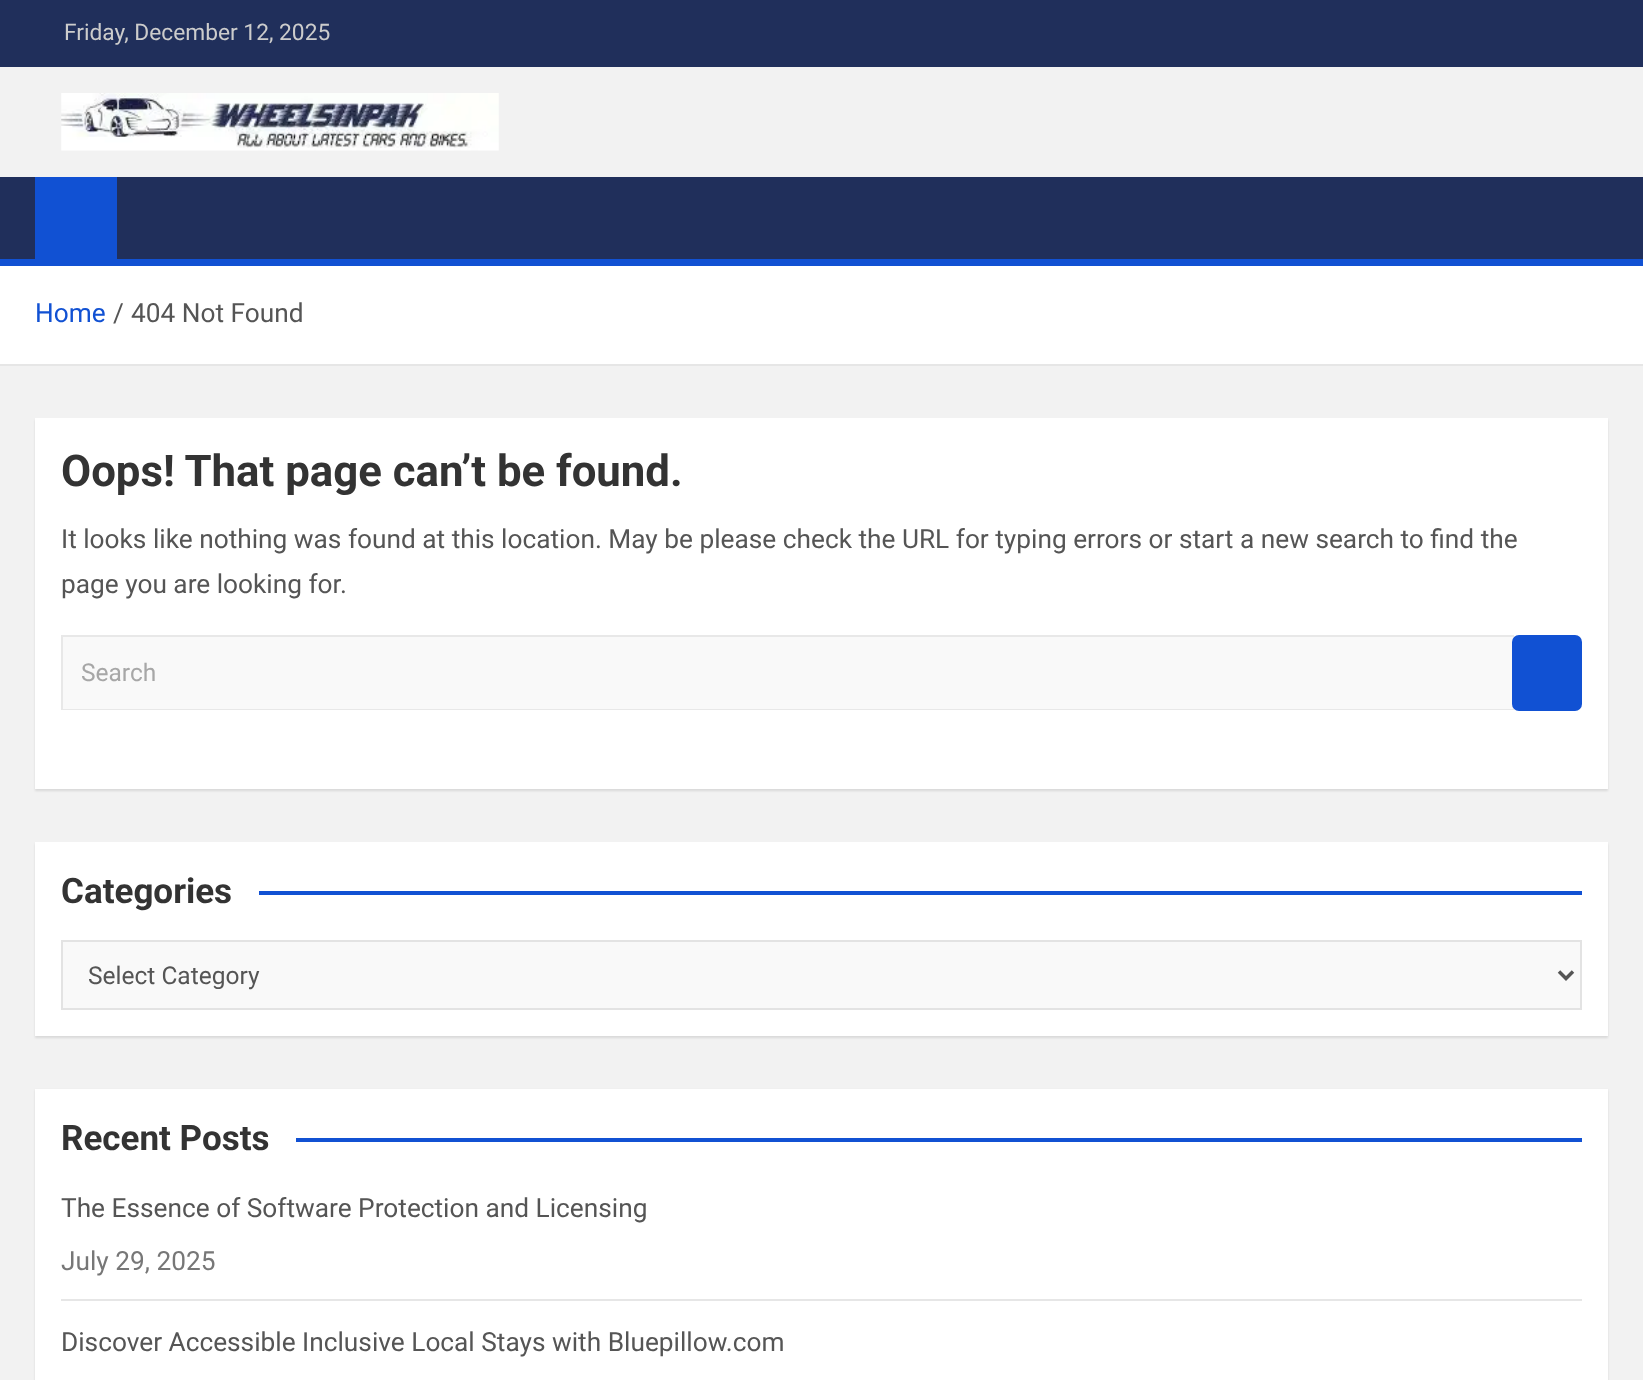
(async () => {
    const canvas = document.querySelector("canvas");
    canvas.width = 1643;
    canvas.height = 1380;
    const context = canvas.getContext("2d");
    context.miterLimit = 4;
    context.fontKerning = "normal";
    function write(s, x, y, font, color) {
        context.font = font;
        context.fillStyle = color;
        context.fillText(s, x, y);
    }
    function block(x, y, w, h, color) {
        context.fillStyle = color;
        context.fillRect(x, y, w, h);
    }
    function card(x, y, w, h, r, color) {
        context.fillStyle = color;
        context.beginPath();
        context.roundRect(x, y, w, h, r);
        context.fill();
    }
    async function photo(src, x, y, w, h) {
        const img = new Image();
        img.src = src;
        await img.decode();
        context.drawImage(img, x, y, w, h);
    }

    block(0, 0, 1643, 1380, "rgb(242, 242, 242)");
    block(0, 0, 1643, 67, "rgb(32, 47, 91)");
    write("Friday, December 12, 2025", 64, 40, "22.75px Roboto", "rgb(204, 204, 204)");
    await photo("media/1.png", 61, 93, 438, 58);
    block(0, 177, 1643, 82, "rgb(32, 47, 91)");
    block(35, 177, 82, 82, "rgb(17, 81, 211)");
    block(0, 259, 1643, 7, "rgb(17, 81, 211)");
    block(0, 266, 1643, 98, "rgb(255, 255, 255)");
    block(0, 364, 1643, 2, "rgb(230, 230, 230)");
    write("Home", 35, 322, "26.25px Roboto", "rgb(17, 81, 211)");
    write("/", 113, 322, "26.25px Roboto", "rgb(85, 85, 85)");
    write("404 Not Found", 131, 322, "26.25px Roboto", "rgb(85, 85, 85)");
    context.fillStyle = "rgba(0, 0, 0, 0.1)";
    context.filter = "blur(1px)";
    context.beginPath();
    context.rect(35, 420, 1573, 371);
    context.fill();
    context.filter = "none";
    block(35, 418, 1573, 371, "rgb(255, 255, 255)");
    write("Oops! That page can’t be found.", 61, 486, "bold 43.75px Roboto", "rgb(51, 51, 51)");
    write("It looks like nothing was found at this location. May be please check the URL for typing errors or start a new search to find the", 61, 548, "26.25px Roboto", "rgb(85, 85, 85)");
    write("page you are looking for.", 61, 593, "26.25px Roboto", "rgb(85, 85, 85)");
    block(63, 637, 1451, 72, "rgb(249, 249, 249)");
    context.fillStyle = "rgb(232, 232, 232)";
    context.beginPath();
    context.moveTo(61, 635);
    context.lineTo(1514, 635);
    context.lineTo(1514, 637);
    context.lineTo(63, 637);
    context.closePath();
    context.fill();
    context.beginPath();
    context.moveTo(1514, 710);
    context.lineTo(61, 710);
    context.lineTo(63, 709);
    context.lineTo(1514, 709);
    context.closePath();
    context.fill();
    context.fillStyle = "rgba(0, 0, 0, 0.09)";
    context.beginPath();
    context.moveTo(61, 710);
    context.lineTo(61, 635);
    context.lineTo(63, 637);
    context.lineTo(63, 709);
    context.closePath();
    context.fill();
    write("Search", 81, 681, "24.5px Roboto", "rgb(167, 167, 167)");
    card(1512, 635, 70, 76, 7, "rgb(17, 81, 211)");
    context.fillStyle = "rgba(0, 0, 0, 0.1)";
    context.filter = "blur(1px)";
    context.beginPath();
    context.rect(35, 844, 1573, 194);
    context.fill();
    context.filter = "none";
    block(35, 842, 1573, 194, "rgb(255, 255, 255)");
    write("Categories", 61, 903, "bold 35px Roboto", "rgb(51, 51, 51)");
    block(259, 891, 1323, 4, "rgb(17, 81, 211)");
    context.fillStyle = "rgb(249, 249, 249)";
    context.beginPath();
    context.rect(62, 941, 1519, 68);
    context.fill();
    context.strokeStyle = "rgb(227, 227, 227)";
    context.lineWidth = 2;
    context.stroke();
    context.beginPath();
    context.moveTo(1559, 971.5);
    context.lineTo(1566, 978.5);
    context.lineTo(1573, 971.5);
    context.strokeStyle = "rgb(85, 85, 85)";
    context.lineWidth = 3.5;
    context.stroke();
    write("Select Category", 88, 984, "24.5px Roboto", "rgb(85, 85, 85)");
    context.fillStyle = "rgba(0, 0, 0, 0.1)";
    context.filter = "blur(1px)";
    context.beginPath();
    context.rect(35, 1090, 1573, 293);
    context.fill();
    context.filter = "none";
    block(35, 1089, 1573, 291, "rgb(255, 255, 255)");
    write("Recent Posts", 61, 1150, "bold 35px Roboto", "rgb(51, 51, 51)");
    block(296, 1138, 1286, 4, "rgb(17, 81, 211)");
    block(61, 1299, 1521, 2, "rgb(230, 230, 230)");
    write("The Essence of Software Protection and Licensing", 61, 1217, "26.25px Roboto", "rgb(85, 85, 85)");
    write("July 29, 2025", 61, 1270, "26.25px Roboto", "rgb(119, 119, 119)");
    write("Discover Accessible Inclusive Local Stays with Bluepillow.com", 61, 1351, "26.25px Roboto", "rgb(85, 85, 85)");
})();
